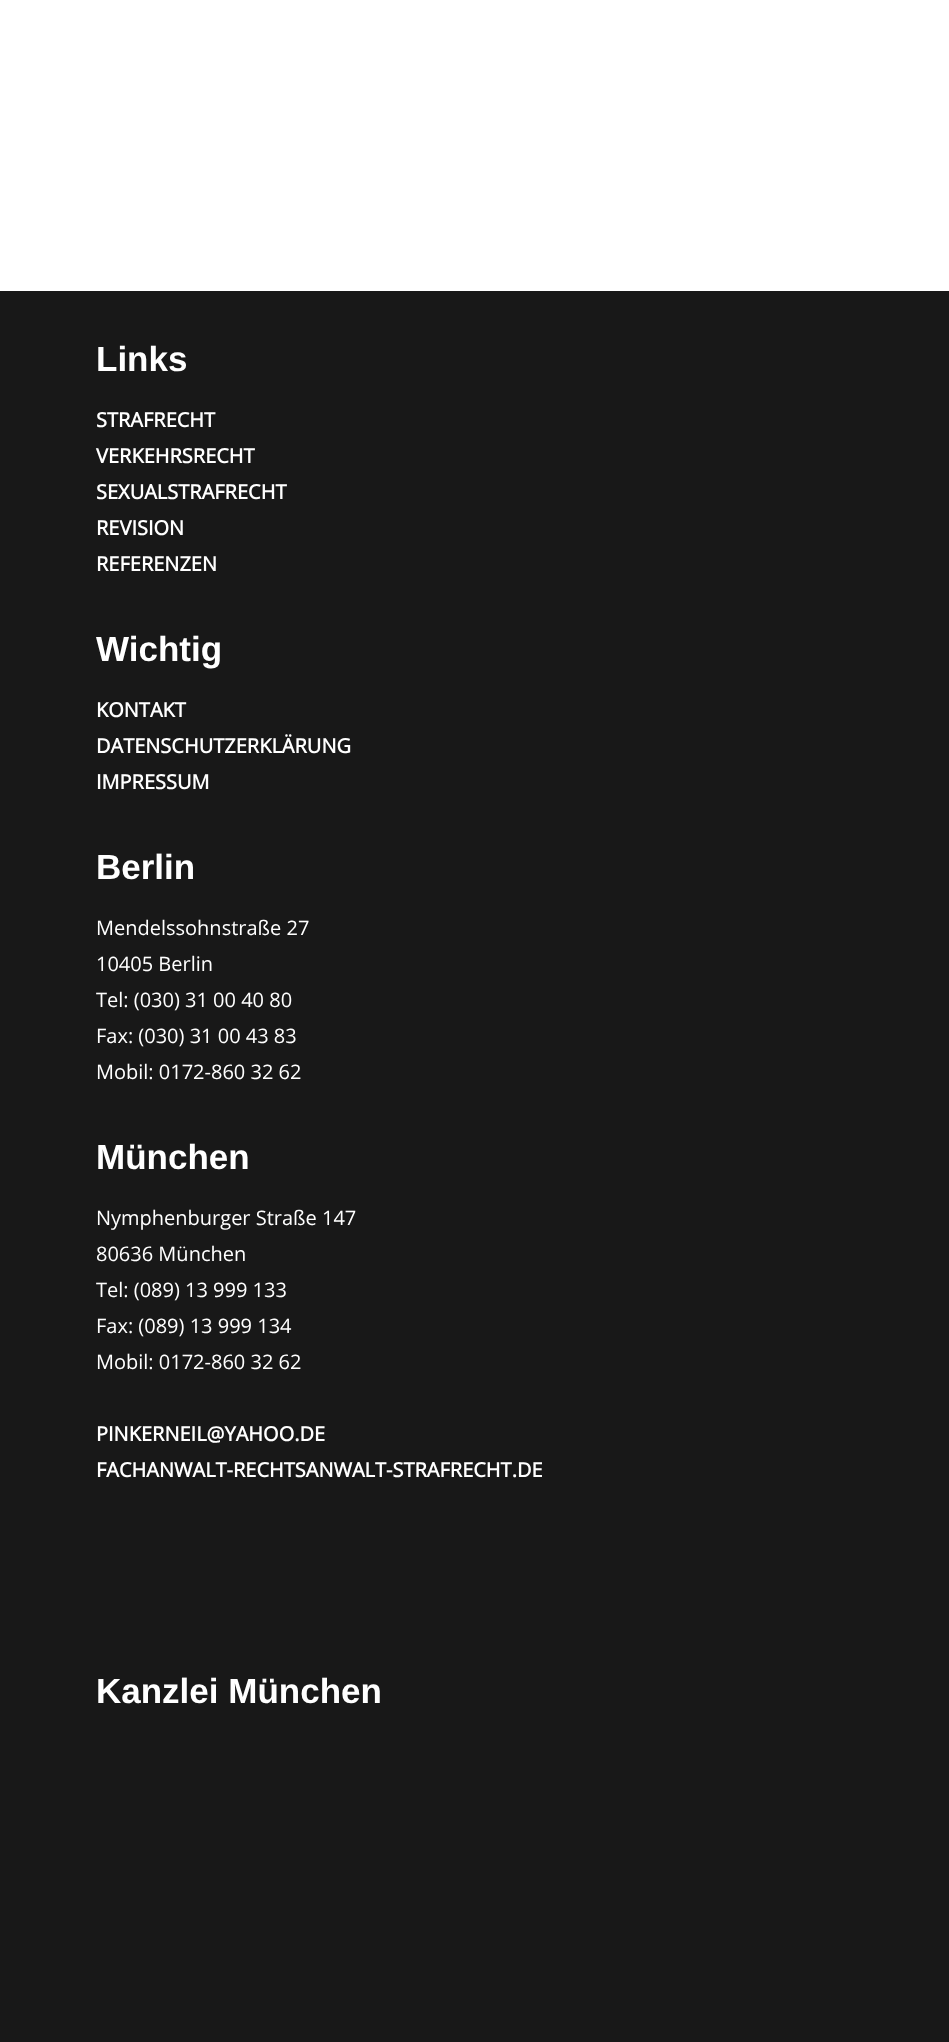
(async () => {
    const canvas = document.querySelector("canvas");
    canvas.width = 949;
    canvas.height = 2042;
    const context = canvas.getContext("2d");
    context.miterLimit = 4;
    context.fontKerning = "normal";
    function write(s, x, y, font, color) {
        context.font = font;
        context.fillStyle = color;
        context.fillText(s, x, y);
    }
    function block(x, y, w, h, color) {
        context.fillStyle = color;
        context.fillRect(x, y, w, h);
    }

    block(0, 0, 949, 2042, "rgb(255, 255, 255)");
    block(0, 291, 949, 1751, "rgb(24, 24, 24)");
    write("Links", 96, 371, "bold 35px Liberation Sans", "rgb(255, 255, 255)");
    write("STRAFRECHT", 96, 427, "bold 20px Open Sans", "rgb(255, 255, 255)");
    write("VERKEHRSRECHT", 96, 463, "bold 20px Open Sans", "rgb(255, 255, 255)");
    write("SEXUALSTRAFRECHT", 96, 499, "bold 20px Open Sans", "rgb(255, 255, 255)");
    write("REVISION", 96, 535, "bold 20px Open Sans", "rgb(255, 255, 255)");
    write("REFERENZEN", 96, 571, "bold 20px Open Sans", "rgb(255, 255, 255)");
    write("Wichtig", 96, 661, "bold 35px Liberation Sans", "rgb(255, 255, 255)");
    write("KONTAKT", 96, 717, "bold 20px Open Sans", "rgb(255, 255, 255)");
    write("DATENSCHUTZERKLÄRUNG", 96, 753, "bold 20px Open Sans", "rgb(255, 255, 255)");
    write("IMPRESSUM", 96, 789, "bold 20px Open Sans", "rgb(255, 255, 255)");
    write("Berlin", 96, 879, "bold 35px Liberation Sans", "rgb(255, 255, 255)");
    write("Mendelssohnstraße 27", 96, 935, "20px Open Sans", "rgb(255, 255, 255)");
    write("10405 Berlin", 96, 971, "20px Open Sans", "rgb(255, 255, 255)");
    write("Tel: (030) 31 00 40 80", 96, 1007, "20px Open Sans", "rgb(255, 255, 255)");
    write("Fax: (030) 31 00 43 83", 96, 1043, "20px Open Sans", "rgb(255, 255, 255)");
    write("Mobil: 0172-860 32 62", 96, 1079, "20px Open Sans", "rgb(255, 255, 255)");
    write("München", 96, 1169, "bold 35px Liberation Sans", "rgb(255, 255, 255)");
    write("Nymphenburger Straße 147", 96, 1225, "20px Open Sans", "rgb(255, 255, 255)");
    write("80636 München", 96, 1261, "20px Open Sans", "rgb(255, 255, 255)");
    write("Tel: (089) 13 999 133", 96, 1297, "20px Open Sans", "rgb(255, 255, 255)");
    write("Fax: (089) 13 999 134", 96, 1333, "20px Open Sans", "rgb(255, 255, 255)");
    write("Mobil: 0172-860 32 62", 96, 1369, "20px Open Sans", "rgb(255, 255, 255)");
    write("PINKERNEIL@YAHOO.DE", 96, 1441, "bold 20px Open Sans", "rgb(255, 255, 255)");
    write("FACHANWALT-RECHTSANWALT-STRAFRECHT.DE", 96, 1477, "bold 20px Open Sans", "rgb(255, 255, 255)");
    write("Kanzlei München", 96, 1703, "bold 35px Liberation Sans", "rgb(255, 255, 255)");
})();
